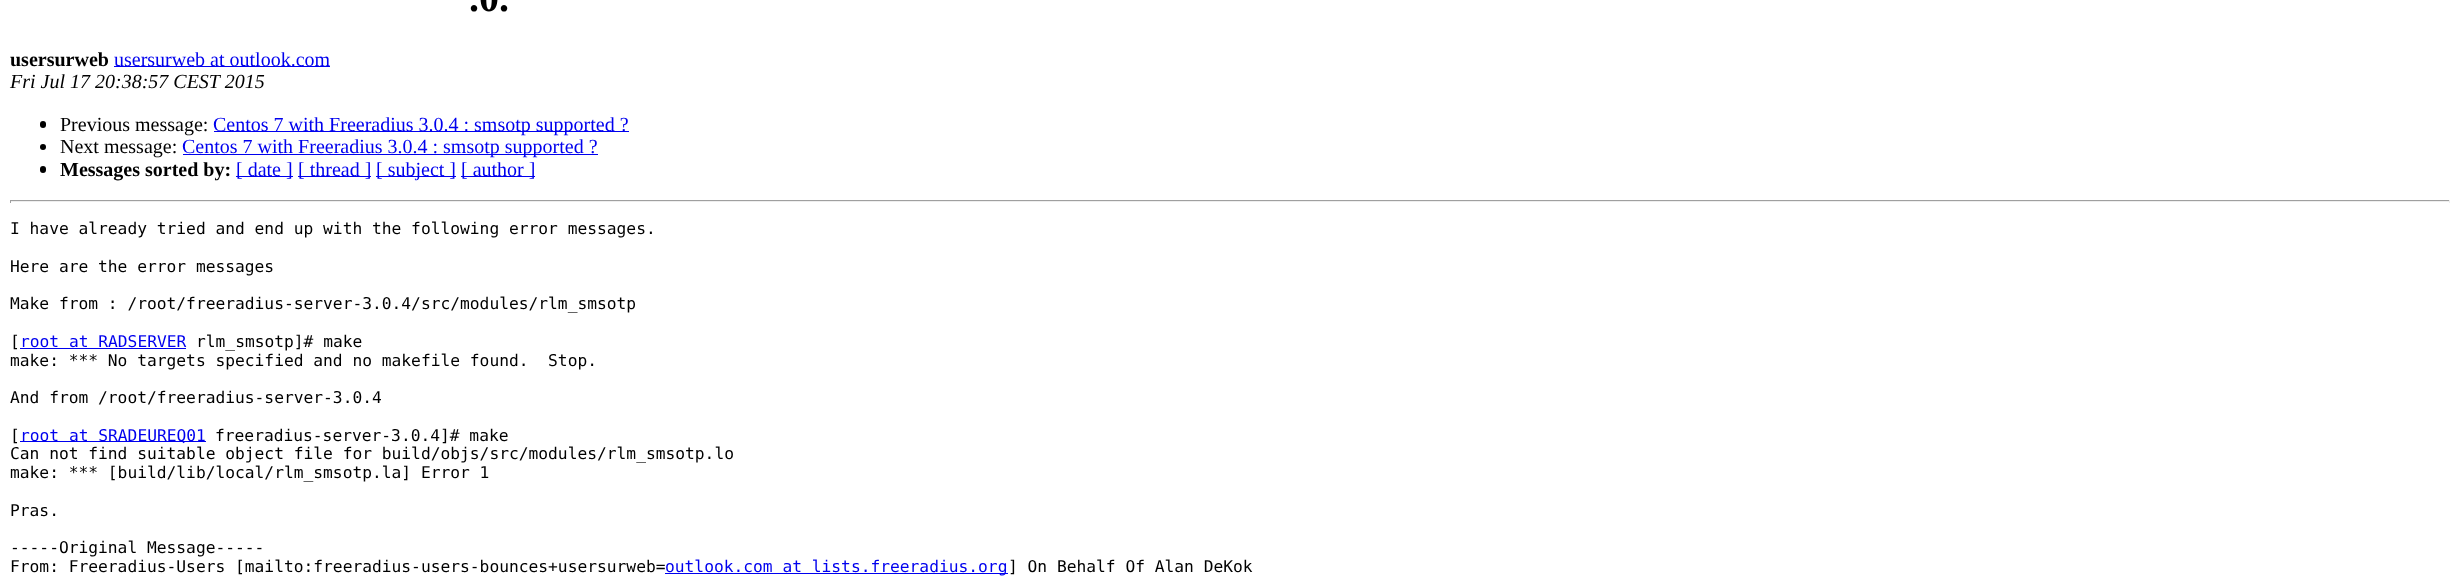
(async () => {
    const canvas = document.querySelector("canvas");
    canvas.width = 2459;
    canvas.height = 585;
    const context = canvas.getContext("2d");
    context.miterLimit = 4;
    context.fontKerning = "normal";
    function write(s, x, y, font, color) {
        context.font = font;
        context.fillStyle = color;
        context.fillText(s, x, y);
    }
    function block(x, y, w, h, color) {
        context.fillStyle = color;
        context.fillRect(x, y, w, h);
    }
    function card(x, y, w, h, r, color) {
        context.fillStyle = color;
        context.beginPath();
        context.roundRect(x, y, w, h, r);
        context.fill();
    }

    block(0, 0, 2459, 585, "rgb(255, 255, 255)");
    write(".0.", 469, 11, "bold 40px Liberation Serif", "rgb(0, 0, 0)");
    write("usersurweb", 10, 66, "bold 20px Liberation Serif", "rgb(0, 0, 0)");
    block(114, 66, 216, 1, "rgb(0, 0, 238)");
    write("usersurweb at outlook.com", 114, 66, "20px Liberation Serif", "rgb(0, 0, 238)");
    write("Fri Jul 17 20:38:57 CEST 2015", 10, 88, "italic 20px Liberation Serif", "rgb(0, 0, 0)");
    card(40, 121, 6, 7, 3, "rgb(0, 0, 0)");
    write("Previous message:", 60, 131, "20px Liberation Serif", "rgb(0, 0, 0)");
    block(214, 131, 415, 1, "rgb(0, 0, 238)");
    write("Centos 7 with Freeradius 3.0.4 : smsotp supported ?", 213, 131, "20px Liberation Serif", "rgb(0, 0, 238)");
    context.fillStyle = "rgb(0, 0, 0)";
    context.beginPath();
    context.arc(43, 147, 3, 0, Math.PI * 2);
    context.fill();
    write("Next message:", 60, 153, "20px Liberation Serif", "rgb(0, 0, 0)");
    block(183, 154, 415, 1, "rgb(0, 0, 238)");
    write("Centos 7 with Freeradius 3.0.4 : smsotp supported ?", 182, 153, "20px Liberation Serif", "rgb(0, 0, 238)");
    card(40, 166, 6, 7, 3, "rgb(0, 0, 0)");
    write("Messages sorted by:", 60, 176, "bold 20px Liberation Serif", "rgb(0, 0, 0)");
    block(236, 176, 57, 1, "rgb(0, 0, 238)");
    write("[ date ]", 236, 176, "20px Liberation Serif", "rgb(0, 0, 238)");
    block(298, 176, 73, 1, "rgb(0, 0, 238)");
    write("[ thread ]", 298, 176, "20px Liberation Serif", "rgb(0, 0, 238)");
    block(376, 176, 80, 1, "rgb(0, 0, 238)");
    write("[ subject ]", 376, 176, "20px Liberation Serif", "rgb(0, 0, 238)");
    block(461, 176, 74, 1, "rgb(0, 0, 238)");
    write("[ author ]", 461, 176, "20px Liberation Serif", "rgb(0, 0, 238)");
    block(10, 200, 2440, 1, "rgb(159, 159, 159)");
    block(2449, 200, 1, 3, "rgb(238, 238, 238)");
    block(10, 201, 2440, 1, "rgb(238, 238, 238)");
    block(10, 200, 1, 3, "rgb(159, 159, 159)");
    write("I have already tried and end up with the following error messages.", 10, 234, "16.25px DejaVu Sans Mono", "rgb(0, 0, 0)");
    write("Here are the error messages", 10, 272, "16.25px DejaVu Sans Mono", "rgb(0, 0, 0)");
    write("Make from : /root/freeradius-server-3.0.4/src/modules/rlm_smsotp", 10, 309, "16.25px DejaVu Sans Mono", "rgb(0, 0, 0)");
    write("[", 10, 347, "16.25px DejaVu Sans Mono", "rgb(0, 0, 0)");
    write("root at RADSERVER", 20, 347, "16.25px DejaVu Sans Mono", "rgb(0, 0, 238)");
    block(20, 348, 166, 1, "rgb(0, 0, 238)");
    write("rlm_smsotp]# make", 196, 347, "16.25px DejaVu Sans Mono", "rgb(0, 0, 0)");
    write("make: *** No targets specified and no makefile found.  Stop.", 10, 366, "16.25px DejaVu Sans Mono", "rgb(0, 0, 0)");
    write("And from /root/freeradius-server-3.0.4", 10, 403, "16.25px DejaVu Sans Mono", "rgb(0, 0, 0)");
    write("[", 10, 441, "16.25px DejaVu Sans Mono", "rgb(0, 0, 0)");
    block(20, 441, 186, 1, "rgb(0, 0, 238)");
    write("root at SRADEUREQ01", 20, 441, "16.25px DejaVu Sans Mono", "rgb(0, 0, 238)");
    write("freeradius-server-3.0.4]# make", 215, 441, "16.25px DejaVu Sans Mono", "rgb(0, 0, 0)");
    write("Can not find suitable object file for build/objs/src/modules/rlm_smsotp.lo", 10, 459, "16.25px DejaVu Sans Mono", "rgb(0, 0, 0)");
    write("make: *** [build/lib/local/rlm_smsotp.la] Error 1", 10, 478, "16.25px DejaVu Sans Mono", "rgb(0, 0, 0)");
    write("Pras.", 10, 516, "16.25px DejaVu Sans Mono", "rgb(0, 0, 0)");
    write("-----Original Message-----", 10, 553, "16.25px DejaVu Sans Mono", "rgb(0, 0, 0)");
    write("From: Freeradius-Users [mailto:freeradius-users-bounces+usersurweb=", 10, 572, "16.25px DejaVu Sans Mono", "rgb(0, 0, 0)");
    block(665, 573, 343, 1, "rgb(0, 0, 238)");
    write("outlook.com at lists.freeradius.org", 665, 572, "16.25px DejaVu Sans Mono", "rgb(0, 0, 238)");
    write("] On Behalf Of Alan DeKok", 1008, 572, "16.25px DejaVu Sans Mono", "rgb(0, 0, 0)");
})();
